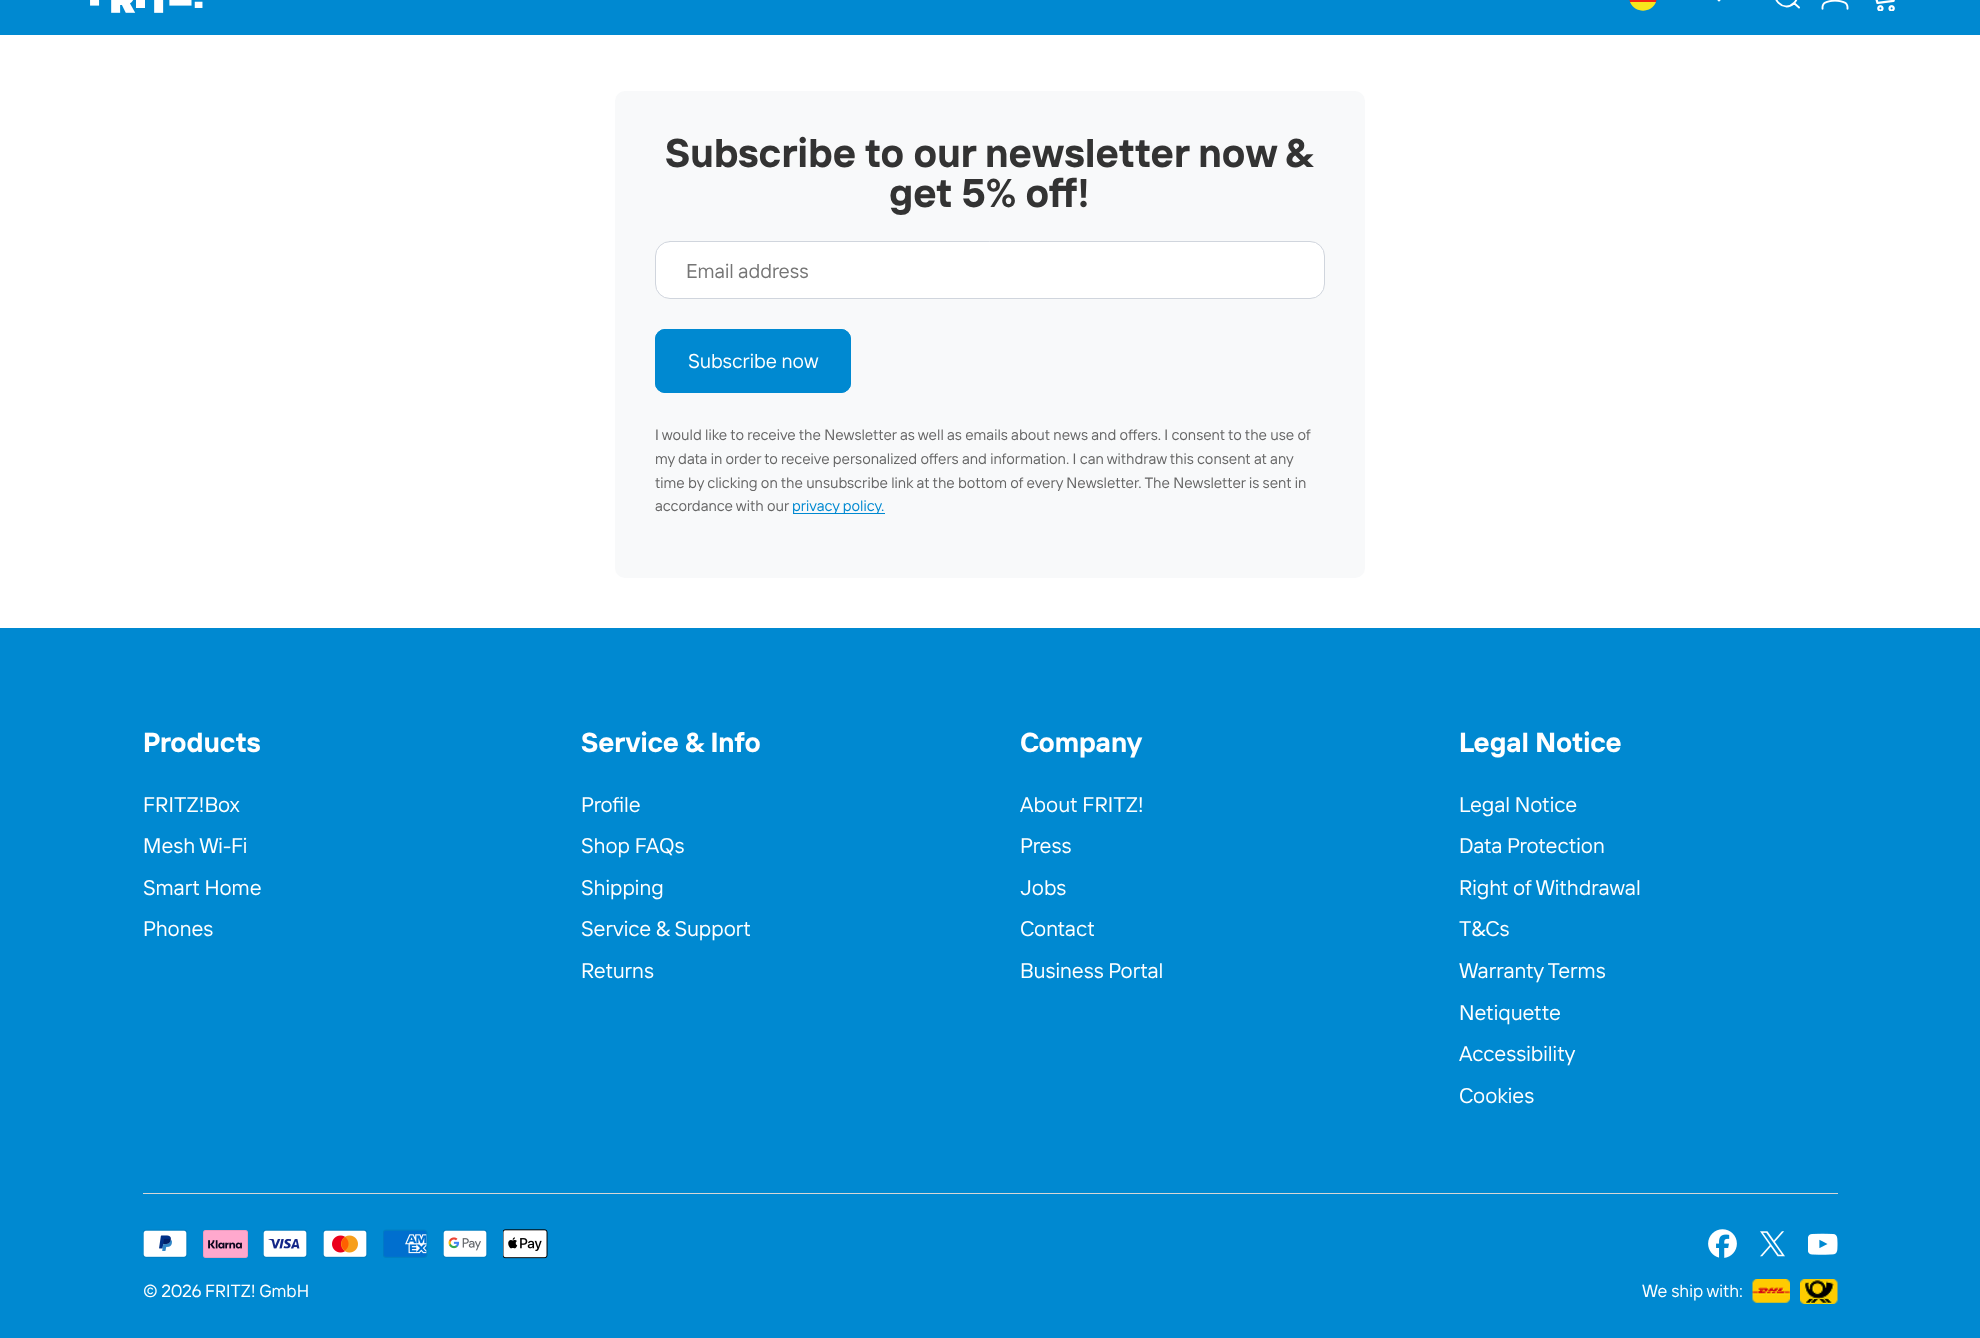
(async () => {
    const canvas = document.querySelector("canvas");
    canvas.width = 1980;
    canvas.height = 1338;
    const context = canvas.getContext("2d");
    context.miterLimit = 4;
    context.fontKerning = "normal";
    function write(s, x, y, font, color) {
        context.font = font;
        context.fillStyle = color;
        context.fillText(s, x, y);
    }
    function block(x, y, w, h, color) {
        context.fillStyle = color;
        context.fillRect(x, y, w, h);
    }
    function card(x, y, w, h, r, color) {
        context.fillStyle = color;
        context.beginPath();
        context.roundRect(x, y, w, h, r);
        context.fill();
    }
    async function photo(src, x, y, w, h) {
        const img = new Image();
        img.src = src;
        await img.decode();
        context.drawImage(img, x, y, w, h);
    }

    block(0, 0, 1980, 1338, "rgb(255, 255, 255)");
    block(0, 0, 1980, 35, "rgb(0, 137, 209)");
    await photo("media/1.png", 90, 0, 113, 13);
    context.fillStyle = "rgb(243, 38, 20)";
    context.beginPath();
    context.moveTo(1656, -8);
    context.lineTo(1630, -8);
    context.bezierCurveTo(1628.5, -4.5, 1629, -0.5, 1630.5, 3);
    context.lineTo(1655.5, 3);
    context.bezierCurveTo(1657, -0.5, 1657.5, -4.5, 1656, -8);
    context.closePath();
    context.fill();
    context.fillStyle = "rgb(248, 231, 28)";
    context.beginPath();
    context.moveTo(1656, 2);
    context.lineTo(1630, 2);
    context.bezierCurveTo(1634.5, 13.5, 1651.5, 13.5, 1656, 2);
    context.closePath();
    context.fill();
    context.beginPath();
    context.moveTo(1711.5, -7);
    context.lineTo(1719, 0.5);
    context.lineTo(1726.5, -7);
    context.strokeStyle = "rgb(255, 255, 255)";
    context.lineWidth = 1.8;
    context.lineCap = "round";
    context.lineJoin = "round";
    context.stroke();
    context.beginPath();
    context.moveTo(1799, 7.5);
    context.lineTo(1794, 3);
    context.moveTo(1794, 3);
    context.bezierCurveTo(1804.5, -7.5, 1788.5, -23.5, 1778.5, -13);
    context.bezierCurveTo(1768, -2.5, 1784, 13.5, 1794, 3);
    context.closePath();
    context.lineWidth = 1.9;
    context.lineJoin = "miter";
    context.stroke();
    await photo("media/2.png", 1821, 0, 28, 10);
    await photo("media/3.png", 1875, 0, 20, 11);
    card(615, 91, 750, 487, 10, "rgb(248, 249, 250)");
    write("Subscribe to our newsletter now &", 665, 167, "bold 40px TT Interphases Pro", "rgb(51, 51, 51)");
    write("get 5% off!", 889, 207, "bold 40px TT Interphases Pro", "rgb(51, 51, 51)");
    context.fillStyle = "rgb(255, 255, 255)";
    context.beginPath();
    context.roundRect(655.5, 241.5, 669, 57, 14.5);
    context.fill();
    context.strokeStyle = "rgb(208, 213, 221)";
    context.lineWidth = 1;
    context.stroke();
    write("Email address", 686, 278, "20px TT Interphases Pro", "rgb(117, 117, 117)");
    card(655, 329, 196, 64, 10, "rgb(0, 137, 209)");
    context.beginPath();
    context.roundRect(655.5, 329.5, 195, 63, 9.5);
    context.strokeStyle = "rgb(0, 137, 209)";
    context.stroke();
    write("Subscribe now", 688, 368, "20px TT Interphases Pro", "rgb(255, 255, 255)");
    write("I would like to receive the Newsletter as well as emails about news and offers. I consent to the use of", 655, 440, "15px TT Interphases Pro", "rgb(102, 102, 102)");
    write("my data in order to receive personalized offers and information. I can withdraw this consent at any", 655, 464, "15px TT Interphases Pro", "rgb(102, 102, 102)");
    write("time by clicking on the unsubscribe link at the bottom of every Newsletter. The Newsletter is sent in", 655, 488, "15px TT Interphases Pro", "rgb(102, 102, 102)");
    write("accordance with our", 655, 511, "15px TT Interphases Pro", "rgb(102, 102, 102)");
    block(793, 513, 92, 1, "rgb(0, 137, 209)");
    write("privacy policy.", 792, 511, "15px TT Interphases Pro", "rgb(0, 137, 209)");
    block(0, 628, 1980, 710, "rgb(0, 137, 209)");
    write("Products", 143, 752, "bold 27.5px TT Interphases Pro", "rgb(255, 255, 255)");
    write("FRITZ!Box", 143, 812, "21.25px TT Interphases Pro", "rgb(255, 255, 255)");
    write("Mesh Wi-Fi", 143, 853, "21.25px TT Interphases Pro", "rgb(255, 255, 255)");
    write("Smart Home", 143, 895, "21.25px TT Interphases Pro", "rgb(255, 255, 255)");
    write("Phones", 143, 936, "21.25px TT Interphases Pro", "rgb(255, 255, 255)");
    write("Service & Info", 581, 752, "bold 27.5px TT Interphases Pro", "rgb(255, 255, 255)");
    write("Profile", 581, 812, "21.25px TT Interphases Pro", "rgb(255, 255, 255)");
    write("Shop FAQs", 581, 853, "21.25px TT Interphases Pro", "rgb(255, 255, 255)");
    write("Shipping", 581, 895, "21.25px TT Interphases Pro", "rgb(255, 255, 255)");
    write("Service & Support", 581, 936, "21.25px TT Interphases Pro", "rgb(255, 255, 255)");
    write("Returns", 581, 978, "21.25px TT Interphases Pro", "rgb(255, 255, 255)");
    write("Company", 1020, 752, "bold 27.5px TT Interphases Pro", "rgb(255, 255, 255)");
    write("About FRITZ!", 1020, 812, "21.25px TT Interphases Pro", "rgb(255, 255, 255)");
    write("Press", 1020, 853, "21.25px TT Interphases Pro", "rgb(255, 255, 255)");
    write("Jobs", 1020, 895, "21.25px TT Interphases Pro", "rgb(255, 255, 255)");
    write("Contact", 1020, 936, "21.25px TT Interphases Pro", "rgb(255, 255, 255)");
    write("Business Portal", 1020, 978, "21.25px TT Interphases Pro", "rgb(255, 255, 255)");
    write("Legal Notice", 1459, 752, "bold 27.5px TT Interphases Pro", "rgb(255, 255, 255)");
    write("Legal Notice", 1459, 812, "21.25px TT Interphases Pro", "rgb(255, 255, 255)");
    write("Data Protection", 1459, 853, "21.25px TT Interphases Pro", "rgb(255, 255, 255)");
    write("Right of Withdrawal", 1459, 895, "21.25px TT Interphases Pro", "rgb(255, 255, 255)");
    write("T&Cs", 1459, 936, "21.25px TT Interphases Pro", "rgb(255, 255, 255)");
    write("Warranty Terms", 1459, 978, "21.25px TT Interphases Pro", "rgb(255, 255, 255)");
    write("Netiquette", 1459, 1020, "21.25px TT Interphases Pro", "rgb(255, 255, 255)");
    write("Accessibility", 1459, 1061, "21.25px TT Interphases Pro", "rgb(255, 255, 255)");
    write("Cookies", 1459, 1103, "21.25px TT Interphases Pro", "rgb(255, 255, 255)");
    block(143, 1193, 1695, 1, "rgb(214, 214, 214)");
    await photo("media/4.png", 143, 1229, 45, 29);
    await photo("media/5.png", 203, 1230, 45, 28);
    await photo("media/6.png", 263, 1229, 45, 29);
    await photo("media/7.png", 323, 1229, 45, 29);
    await photo("media/8.png", 383, 1229, 45, 29);
    await photo("media/9.png", 443, 1229, 45, 29);
    await photo("media/10.png", 503, 1229, 45, 30);
    await photo("media/11.png", 1708, 1229, 29, 29);
    await photo("media/12.png", 1760, 1231, 25, 26);
    await photo("media/13.png", 1808, 1233, 30, 22);
    write("© 2026 FRITZ! GmbH", 143, 1297, "17.5px TT Interphases Pro", "rgb(255, 255, 255)");
    write("We ship with:", 1642, 1297, "17.5px TT Interphases Pro", "rgb(255, 255, 255)");
    await photo("media/14.png", 1752, 1279, 38, 24);
    await photo("media/15.png", 1800, 1279, 38, 25);
})();
